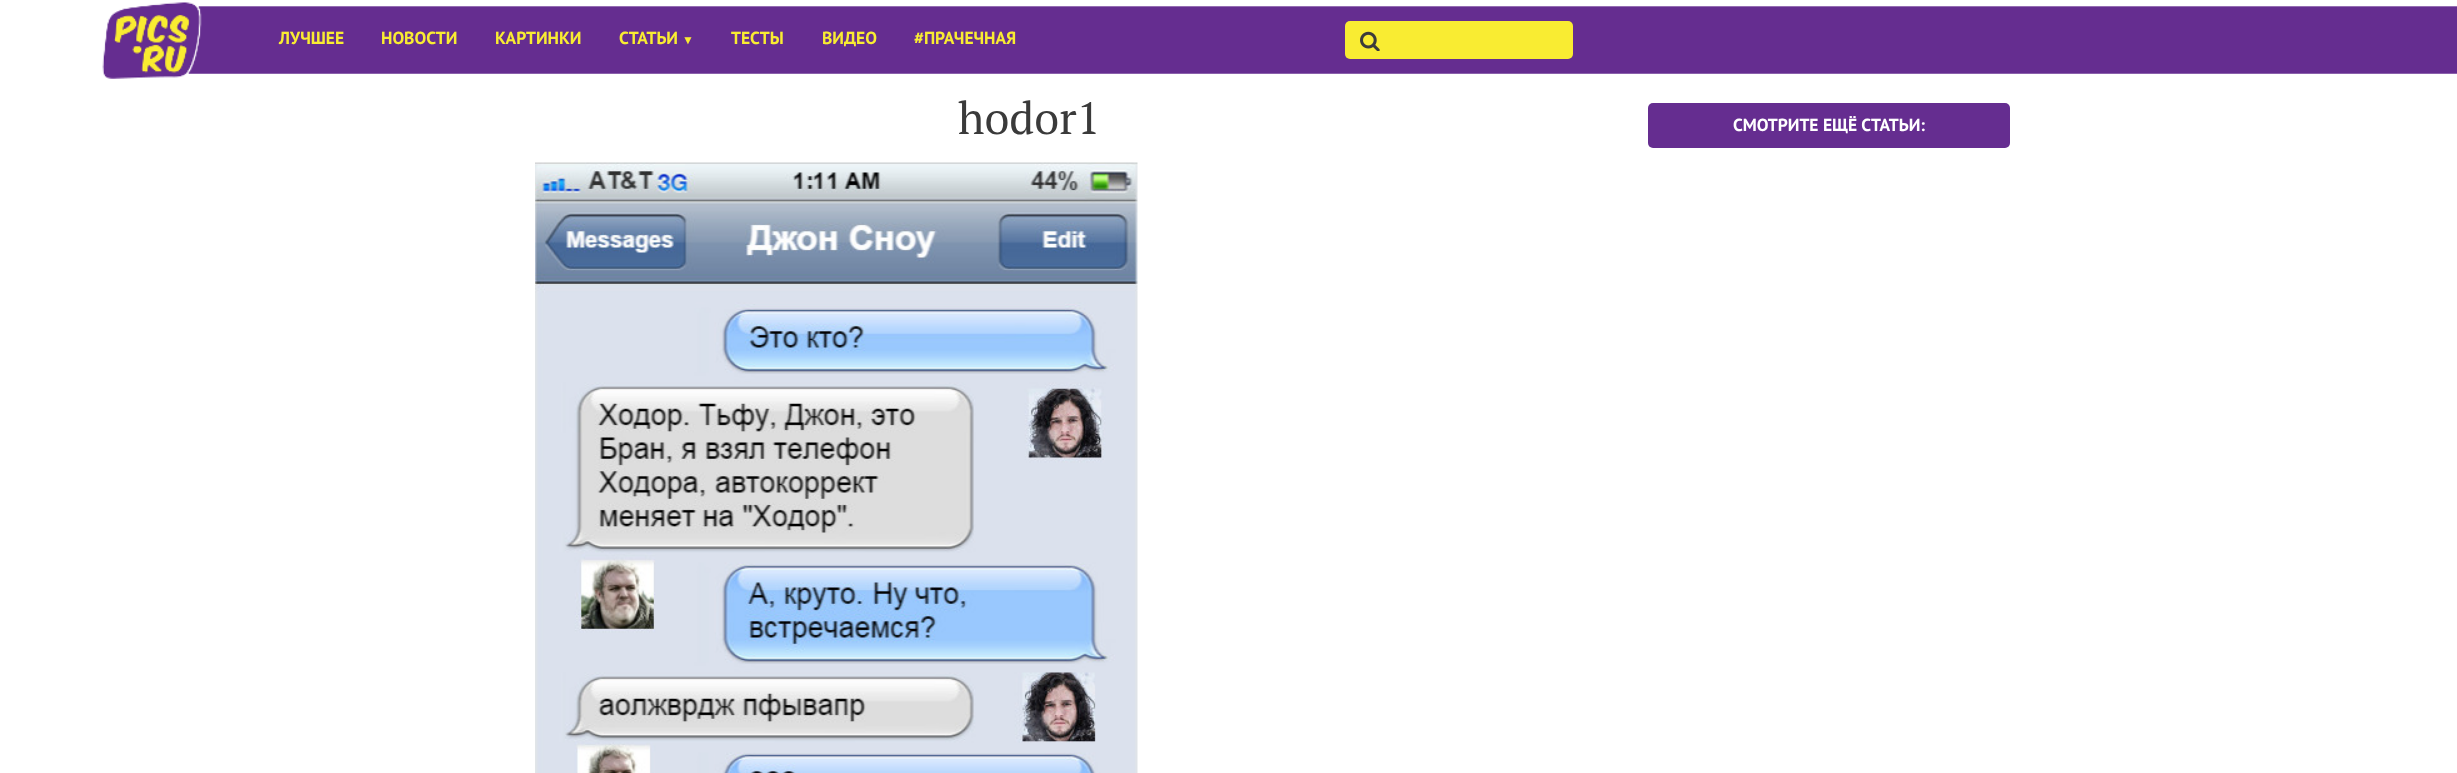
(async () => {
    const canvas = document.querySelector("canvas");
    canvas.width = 2457;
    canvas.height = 773;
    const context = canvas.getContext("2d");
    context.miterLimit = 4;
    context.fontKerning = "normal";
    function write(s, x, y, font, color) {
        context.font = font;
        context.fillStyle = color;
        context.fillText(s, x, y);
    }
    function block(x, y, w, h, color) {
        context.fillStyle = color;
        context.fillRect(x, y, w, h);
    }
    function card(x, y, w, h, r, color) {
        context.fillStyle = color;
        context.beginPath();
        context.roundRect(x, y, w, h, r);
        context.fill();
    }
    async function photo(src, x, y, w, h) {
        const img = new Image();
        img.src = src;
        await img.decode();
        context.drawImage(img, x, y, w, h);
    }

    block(0, 0, 2457, 773, "rgb(255, 255, 255)");
    await photo("media/1.png", 102, 2, 2355, 77);
    write("ЛУЧШЕЕ", 279, 44, "bold 17.5px PT Sans", "rgb(249, 236, 50)");
    write("НОВОСТИ", 381, 44, "bold 17.5px PT Sans", "rgb(249, 236, 50)");
    write("КАРТИНКИ", 495, 44, "bold 17.5px PT Sans", "rgb(249, 236, 50)");
    write("СТАТЬИ", 619, 44, "bold 17.5px PT Sans", "rgb(249, 236, 50)");
    write("▼", 682, 44, "bold 12px Liberation Sans", "rgb(249, 236, 50)");
    write("ТЕСТЫ", 731, 44, "bold 17.5px PT Sans", "rgb(249, 236, 50)");
    write("ВИДЕО", 822, 44, "bold 17.5px PT Sans", "rgb(249, 236, 50)");
    write("#ПРАЧЕЧНАЯ", 914, 44, "bold 17.5px PT Sans", "rgb(249, 236, 50)");
    card(1345, 21, 228, 38, 5, "rgb(249, 236, 50)");
    await photo("media/2.png", 1360, 31, 20, 20);
    write("hodor1", 958, 134, "45px PT Serif", "rgb(58, 58, 58)");
    await photo("media/3.png", 535, 162, 603, 611);
    card(1648, 103, 362, 45, 5, "rgb(101, 45, 144)");
    write("СМОТРИТЕ ЕЩЁ СТАТЬИ:", 1733, 131, "bold 17.5px PT Sans", "rgb(255, 255, 255)");
})();
